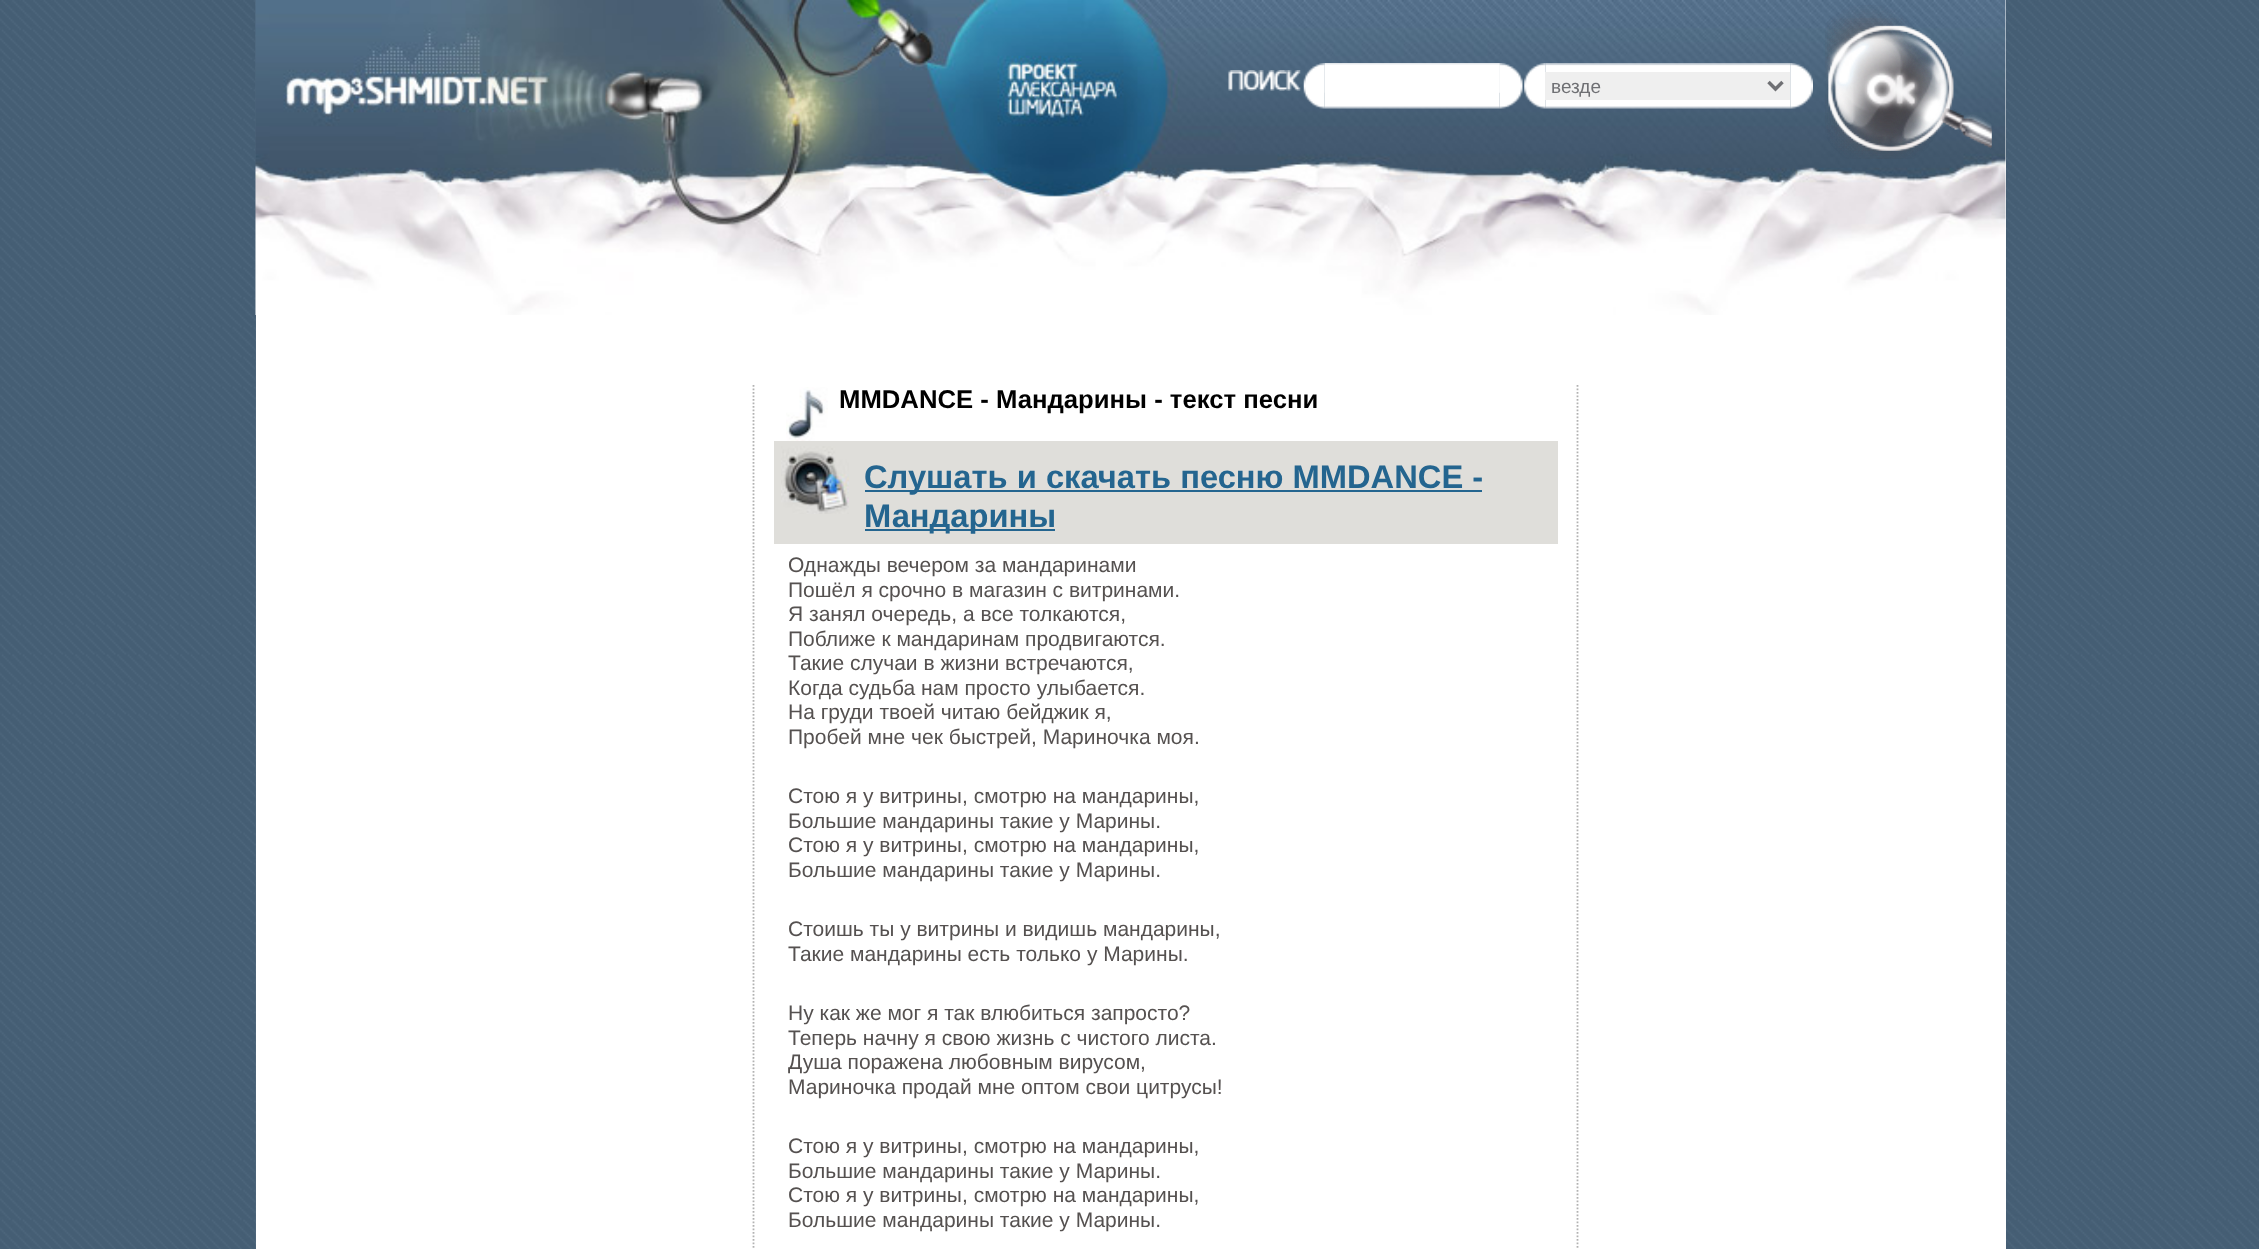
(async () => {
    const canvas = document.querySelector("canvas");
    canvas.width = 2259;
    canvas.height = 1249;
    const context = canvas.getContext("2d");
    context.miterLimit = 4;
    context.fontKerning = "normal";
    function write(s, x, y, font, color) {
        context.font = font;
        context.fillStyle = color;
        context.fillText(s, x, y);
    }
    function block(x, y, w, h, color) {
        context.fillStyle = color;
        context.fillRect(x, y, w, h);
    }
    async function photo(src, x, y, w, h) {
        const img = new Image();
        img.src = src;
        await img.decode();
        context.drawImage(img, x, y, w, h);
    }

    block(0, 0, 2259, 1249, "rgb(255, 255, 255)");
    await photo("media/1.png", 0, 0, 2259, 1249);
    await photo("media/2.png", 255, 0, 1, 1249);
    block(256, 0, 1750, 1249, "rgb(255, 255, 255)");
    await photo("media/3.png", 255, 0, 1751, 315);
    await photo("media/4.png", 1228, 70, 73, 21);
    await photo("media/5.png", 1303, 63, 22, 46);
    await photo("media/8.png", 1499, 63, 24, 46);
    await photo("media/6.png", 1324, 63, 176, 46);
    await photo("media/7.png", 1324, 63, 176, 30);
    await photo("media/9.png", 1524, 63, 22, 46);
    await photo("media/11.png", 1790, 63, 23, 46);
    await photo("media/10.png", 1545, 63, 246, 46);
    block(1545, 72, 245, 28, "rgb(239, 239, 239)");
    context.beginPath();
    context.moveTo(1768.5, 82);
    context.lineTo(1775.5, 89);
    context.lineTo(1782.5, 82);
    context.strokeStyle = "rgb(111, 112, 116)";
    context.lineWidth = 3.5;
    context.stroke();
    write("везде", 1551, 93, "19px Liberation Sans", "rgb(111, 112, 116)");
    await photo("media/12.png", 1825, 5, 167, 154);
    await photo("media/13.png", 1827, 18, 165, 133);
    context.beginPath();
    context.moveTo(1577.5, 385);
    context.lineTo(1577.5, 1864);
    context.strokeStyle = "rgb(178, 178, 178)";
    context.lineWidth = 1.8;
    context.setLineDash([1.75, 1.75]);
    context.stroke();
    context.beginPath();
    context.moveTo(753.5, 385);
    context.lineTo(753.5, 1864);
    context.stroke();
    await photo("media/14.png", 786, 387, 42, 54);
    write("MMDANCE - Мандарины - текст песни", 839, 408, "bold 25.7px Liberation Sans", "rgb(0, 0, 0)");
    block(774, 441, 784, 103, "rgb(223, 222, 218)");
    await photo("media/15.png", 781, 446, 68, 68);
    block(865, 490, 617, 2, "rgb(36, 101, 143)");
    write("Слушать и скачать песню MMDANCE -", 864, 488, "bold 32.7px Liberation Sans", "rgb(36, 101, 143)");
    block(865, 529, 190, 2, "rgb(36, 101, 143)");
    write("Мандарины", 864, 527, "bold 32.7px Liberation Sans", "rgb(36, 101, 143)");
    write("Однажды вечером за мандаринами", 788, 572, "21px Liberation Sans", "rgb(85, 81, 80)");
    write("Пошёл я срочно в магазин с витринами.", 788, 597, "21px Liberation Sans", "rgb(85, 81, 80)");
    write("Я занял очередь, а все толкаются,", 788, 621, "21px Liberation Sans", "rgb(85, 81, 80)");
    write("Поближе к мандаринам продвигаются.", 788, 646, "21px Liberation Sans", "rgb(85, 81, 80)");
    write("Такие случаи в жизни встречаются,", 788, 670, "21px Liberation Sans", "rgb(85, 81, 80)");
    write("Когда судьба нам просто улыбается.", 788, 695, "21px Liberation Sans", "rgb(85, 81, 80)");
    write("На груди твоей читаю бейджик я,", 788, 719, "21px Liberation Sans", "rgb(85, 81, 80)");
    write("Пробей мне чек быстрей, Мариночка моя.", 788, 744, "21px Liberation Sans", "rgb(85, 81, 80)");
    write("Стою я у витрины, смотрю на мандарины,", 788, 803, "21px Liberation Sans", "rgb(85, 81, 80)");
    write("Большие мандарины такие у Марины.", 788, 828, "21px Liberation Sans", "rgb(85, 81, 80)");
    write("Стою я у витрины, смотрю на мандарины,", 788, 852, "21px Liberation Sans", "rgb(85, 81, 80)");
    write("Большие мандарины такие у Марины.", 788, 877, "21px Liberation Sans", "rgb(85, 81, 80)");
    write("Стоишь ты у витрины и видишь мандарины,", 788, 936, "21px Liberation Sans", "rgb(85, 81, 80)");
    write("Такие мандарины есть только у Марины.", 788, 961, "21px Liberation Sans", "rgb(85, 81, 80)");
    write("Ну как же мог я так влюбиться запросто?", 788, 1020, "21px Liberation Sans", "rgb(85, 81, 80)");
    write("Теперь начну я свою жизнь с чистого листа.", 788, 1045, "21px Liberation Sans", "rgb(85, 81, 80)");
    write("Душа поражена любовным вирусом,", 788, 1069, "21px Liberation Sans", "rgb(85, 81, 80)");
    write("Мариночка продай мне оптом свои цитрусы!", 788, 1094, "21px Liberation Sans", "rgb(85, 81, 80)");
    write("Стою я у витрины, смотрю на мандарины,", 788, 1153, "21px Liberation Sans", "rgb(85, 81, 80)");
    write("Большие мандарины такие у Марины.", 788, 1178, "21px Liberation Sans", "rgb(85, 81, 80)");
    write("Стою я у витрины, смотрю на мандарины,", 788, 1202, "21px Liberation Sans", "rgb(85, 81, 80)");
    write("Большие мандарины такие у Марины.", 788, 1227, "21px Liberation Sans", "rgb(85, 81, 80)");
})();
